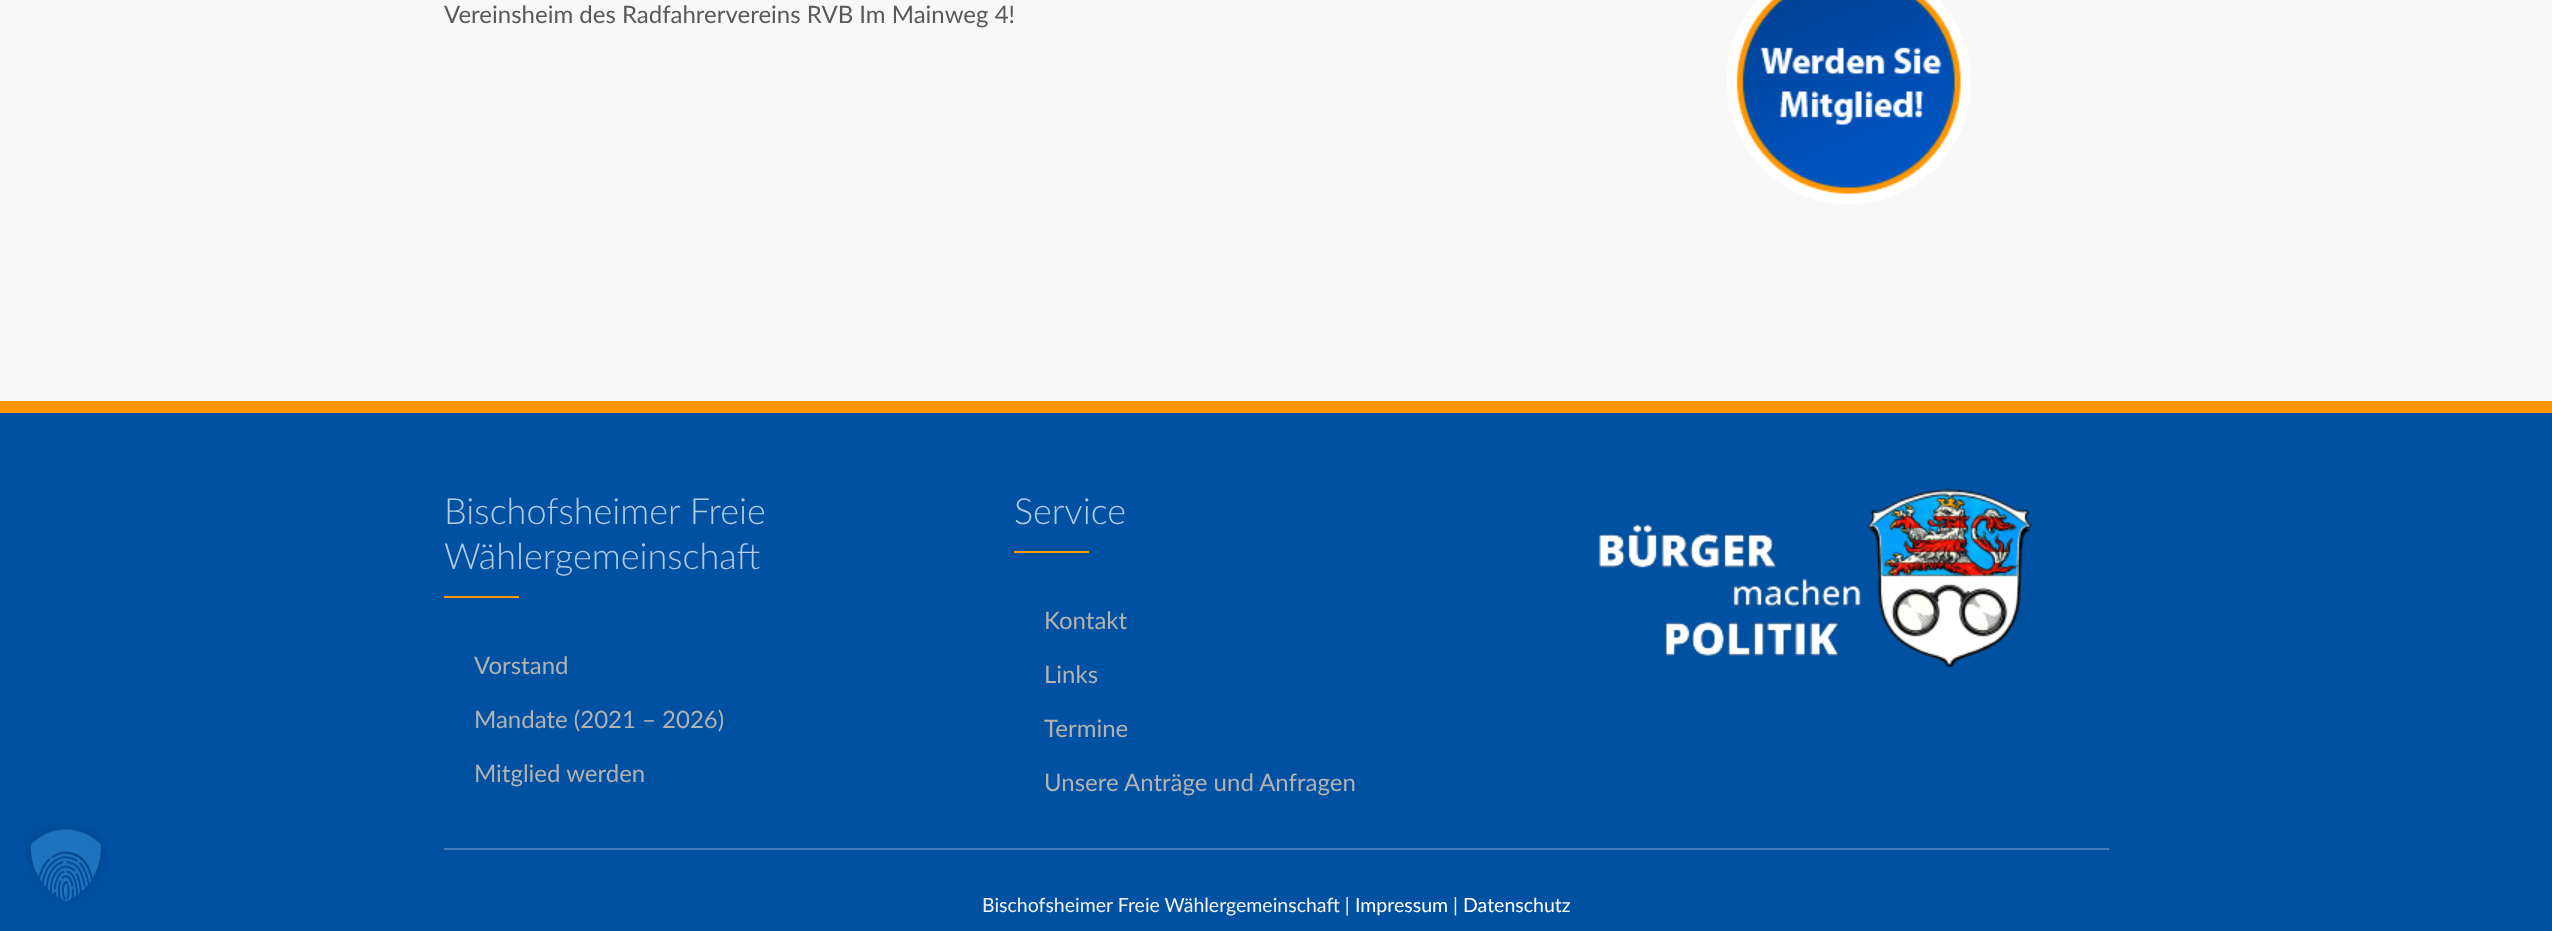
(async () => {
    const canvas = document.querySelector("canvas");
    canvas.width = 2552;
    canvas.height = 931;
    const context = canvas.getContext("2d");
    context.miterLimit = 4;
    context.fontKerning = "normal";
    function write(s, x, y, font, color) {
        context.font = font;
        context.fillStyle = color;
        context.fillText(s, x, y);
    }
    function block(x, y, w, h, color) {
        context.fillStyle = color;
        context.fillRect(x, y, w, h);
    }
    async function photo(src, x, y, w, h) {
        const img = new Image();
        img.src = src;
        await img.decode();
        context.drawImage(img, x, y, w, h);
    }

    block(0, 0, 2552, 931, "rgb(248, 248, 248)");
    block(0, 413, 2552, 518, "rgb(0, 81, 162)");
    await photo("media/1.png", 25, 823, 82, 81);
    write("Vereinsheim des Radfahrervereins RVB Im Mainweg 4!", 444, 23, "24px Lato", "rgb(89, 89, 89)");
    await photo("media/2.png", 1727, 0, 244, 204);
    block(0, 401, 2552, 12, "rgb(255, 149, 0)");
    block(444, 848, 1665, 2, "rgb(64, 125, 185)");
    write("Bischofsheimer Freie", 444, 524, "300 36px Lato", "rgb(179, 203, 227)");
    write("Wählergemeinschaft", 444, 569, "300 36px Lato", "rgb(179, 203, 227)");
    block(444, 596, 75, 2, "rgb(255, 150, 0)");
    write("Vorstand", 474, 674, "24px Lato", "rgb(178, 178, 178)");
    write("Mandate (2021 – 2026)", 474, 728, "24px Lato", "rgb(178, 178, 178)");
    write("Mitglied werden", 474, 782, "24px Lato", "rgb(178, 178, 178)");
    write("Service", 1014, 524, "300 36px Lato", "rgb(179, 203, 227)");
    block(1014, 551, 75, 2, "rgb(255, 150, 0)");
    write("Kontakt", 1044, 629, "24px Lato", "rgb(178, 178, 178)");
    write("Links", 1044, 683, "24px Lato", "rgb(178, 178, 178)");
    write("Termine", 1044, 737, "24px Lato", "rgb(178, 178, 178)");
    write("Unsere Anträge und Anfragen", 1044, 791, "24px Lato", "rgb(178, 178, 178)");
    await photo("media/3.png", 1598, 488, 435, 180);
    write("Bischofsheimer Freie Wählergemeinschaft |", 982, 912, "19.5px Lato", "rgb(241, 241, 241)");
    write("Impressum", 1355, 912, "19.5px Lato", "rgb(255, 255, 255)");
    write("|", 1453, 912, "19.5px Lato", "rgb(241, 241, 241)");
    write("Datenschutz", 1463, 912, "19.5px Lato", "rgb(255, 255, 255)");
})();
